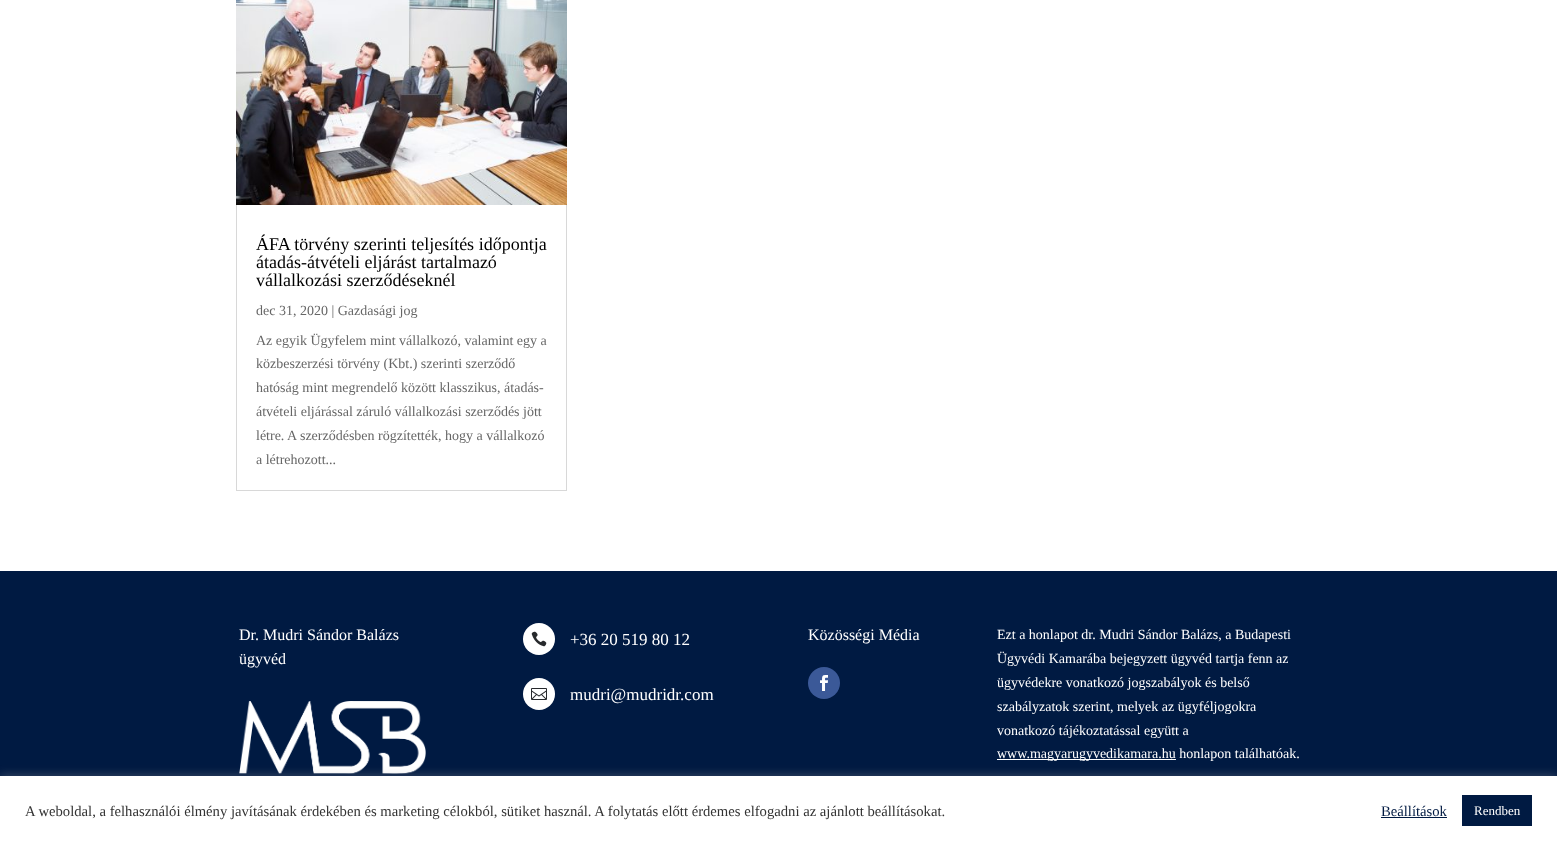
(async () => {
    const canvas = document.querySelector("canvas");
    canvas.width = 1557;
    canvas.height = 845;
    const context = canvas.getContext("2d");
    context.miterLimit = 4;
    context.fontKerning = "normal";
    function write(s, x, y, font, color) {
        context.font = font;
        context.fillStyle = color;
        context.fillText(s, x, y);
    }
    function block(x, y, w, h, color) {
        context.fillStyle = color;
        context.fillRect(x, y, w, h);
    }
    async function photo(src, x, y, w, h) {
        const img = new Image();
        img.src = src;
        await img.decode();
        context.drawImage(img, x, y, w, h);
    }

    block(0, 0, 1557, 845, "rgb(255, 255, 255)");
    context.strokeStyle = "rgb(216, 216, 216)";
    context.strokeRect(236.5, -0.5, 330, 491);
    await photo("media/1.png", 236, 0, 331, 205);
    write("ÁFA törvény szerinti teljesítés időpontja", 256, 250, "18px Liberation Serif", "rgb(0, 0, 0)");
    write("átadás-átvételi eljárást tartalmazó", 256, 268, "18px Liberation Serif", "rgb(0, 0, 0)");
    write("vállalkozási szerződéseknél", 256, 286, "18px Liberation Serif", "rgb(0, 0, 0)");
    write("dec 31, 2020 | Gazdasági jog", 256, 315, "14px Liberation Serif", "rgb(102, 102, 102)");
    write("Az egyik Ügyfelem mint vállalkozó, valamint egy a", 256, 345, "14px Liberation Serif", "rgb(102, 102, 102)");
    write("közbeszerzési törvény (Kbt.) szerinti szerződő", 256, 368, "14px Liberation Serif", "rgb(102, 102, 102)");
    write("hatóság mint megrendelő között klasszikus, átadás-", 256, 392, "14px Liberation Serif", "rgb(102, 102, 102)");
    write("átvételi eljárással záruló vállalkozási szerződés jött", 256, 416, "14px Liberation Serif", "rgb(102, 102, 102)");
    write("létre. A szerződésben rögzítették, hogy a vállalkozó", 256, 440, "14px Liberation Serif", "rgb(102, 102, 102)");
    write("a létrehozott...", 256, 464, "14px Liberation Serif", "rgb(102, 102, 102)");
    block(0, 571, 1557, 205, "rgb(0, 26, 66)");
    write("Dr. Mudri Sándor Balázs", 239, 640, "16px Liberation Serif", "rgb(255, 255, 255)");
    write("ügyvéd", 239, 664, "16px Liberation Serif", "rgb(255, 255, 255)");
    await photo("media/2.png", 239, 701, 187, 73);
    context.beginPath();
    context.arc(539, 639, 16, 0, Math.PI * 2);
    context.fill();
    await photo("media/3.png", 531, 631, 16, 16);
    write("+36 20 519 80 12", 570, 645, "17px Liberation Serif", "rgb(255, 255, 255)");
    context.beginPath();
    context.arc(539, 694, 16, 0, Math.PI * 2);
    context.fill();
    await photo("media/4.png", 531, 688, 16, 12);
    write("mudri@mudridr.com", 570, 700, "17px Liberation Serif", "rgb(255, 255, 255)");
    write("Közösségi Média", 808, 640, "16px Liberation Serif", "rgb(255, 255, 255)");
    context.fillStyle = "rgb(59, 89, 152)";
    context.beginPath();
    context.arc(824, 683, 16, 0, Math.PI * 2);
    context.fill();
    await photo("media/5.png", 820, 675, 8, 16);
    write("Ezt a honlapot dr. Mudri Sándor Balázs, a Budapesti", 997, 639, "14px Liberation Serif", "rgb(255, 255, 255)");
    write("Ügyvédi Kamarába bejegyzett ügyvéd tartja fenn az", 997, 663, "14px Liberation Serif", "rgb(255, 255, 255)");
    write("ügyvédekre vonatkozó jogszabályok és belső", 997, 687, "14px Liberation Serif", "rgb(255, 255, 255)");
    write("szabályzatok szerint, melyek az ügyféljogokra", 997, 711, "14px Liberation Serif", "rgb(255, 255, 255)");
    write("vonatkozó tájékoztatással együtt a", 997, 735, "14px Liberation Serif", "rgb(255, 255, 255)");
    block(997, 759, 179, 1, "rgb(255, 255, 255)");
    write("www.magyarugyvedikamara.hu honlapon találhatóak.", 997, 758, "14px Liberation Serif", "rgb(255, 255, 255)");
    context.fillStyle = "rgba(172, 171, 171, 0.3)";
    context.filter = "blur(5px)";
    context.beginPath();
    context.rect(0, 775, 1557, 69);
    context.fill();
    context.filter = "none";
    block(0, 776, 1557, 69, "rgb(255, 255, 255)");
    write("A weboldal, a felhasználói élmény javításának érdekében és marketing célokból, sütiket használ. A folytatás előtt érdemes elfogadni az ajánlott beállításokat.", 25, 816, "14.67px Liberation Serif", "rgb(51, 51, 51)");
    write("Beállítások", 1381, 816, "14.67px Liberation Serif", "rgb(0, 26, 66)");
    block(1381, 817, 66, 1, "rgb(0, 26, 66)");
    block(1462, 795, 70, 31, "rgb(0, 26, 66)");
    write("Rendben", 1474, 815, "13px Liberation Serif", "rgb(255, 255, 255)");
})();
